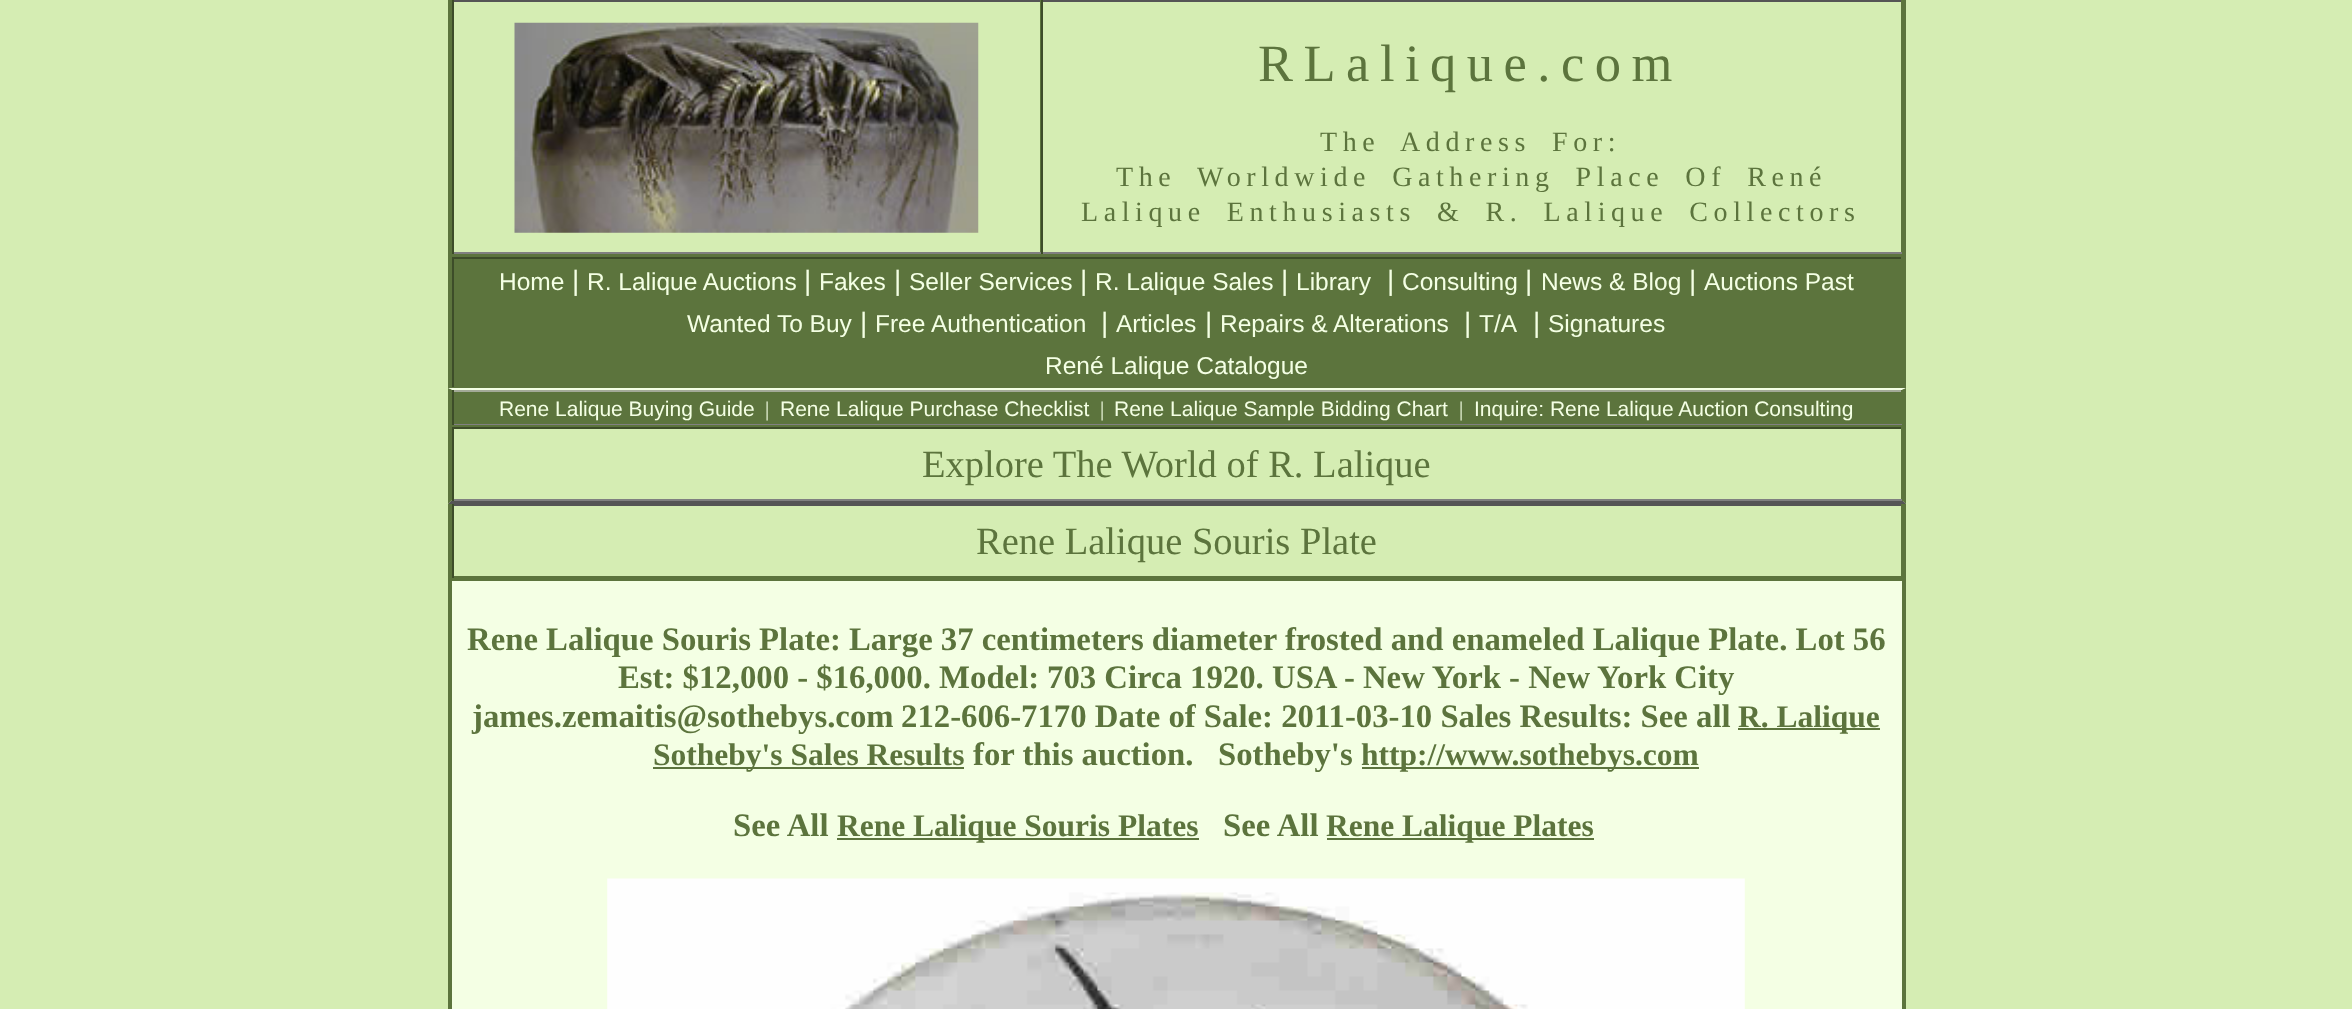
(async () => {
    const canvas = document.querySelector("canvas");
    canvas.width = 2352;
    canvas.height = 1009;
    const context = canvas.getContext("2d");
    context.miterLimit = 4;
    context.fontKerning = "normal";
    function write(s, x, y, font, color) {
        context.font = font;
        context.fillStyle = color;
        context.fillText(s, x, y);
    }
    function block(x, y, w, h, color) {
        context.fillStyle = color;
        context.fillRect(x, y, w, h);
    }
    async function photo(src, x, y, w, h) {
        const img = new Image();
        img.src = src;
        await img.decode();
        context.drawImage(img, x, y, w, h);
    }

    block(0, 0, 2352, 1009, "rgb(213, 237, 179)");
    block(1903, 0, 3, 254, "rgb(92, 116, 61)");
    block(448, 0, 4, 254, "rgb(92, 116, 61)");
    block(452, 0, 1450, 2, "rgb(85, 85, 85)");
    block(1040, 0, 1, 254, "rgb(92, 116, 61)");
    block(452, 252, 589, 2, "rgb(128, 128, 128)");
    block(452, 0, 2, 254, "rgb(61, 77, 41)");
    await photo("media/1.png", 514, 22, 465, 211);
    block(1901, 0, 2, 254, "rgb(92, 116, 61)");
    block(1041, 252, 861, 2, "rgb(128, 128, 128)");
    block(1041, 0, 2, 254, "rgb(61, 77, 41)");
    context.letterSpacing = "10.5px";
    write("RLalique.com", 1258, 81, "52.5px Liberation Serif", "rgb(92, 116, 61)");
    context.letterSpacing = "5.6px";
    write("The", 1320, 151, "28px Liberation Serif", "rgb(92, 116, 61)");
    context.wordSpacing = "8.5px";
    write("Address For:", 1400, 151, "28px Liberation Serif", "rgb(92, 116, 61)");
    write("The Worldwide Gathering Place Of René", 1116, 186, "28px Liberation Serif", "rgb(92, 116, 61)");
    write("Lalique Enthusiasts & R. Lalique Collectors", 1081, 221, "28px Liberation Serif", "rgb(92, 116, 61)");
    block(454, 259, 1447, 128, "rgb(92, 116, 61)");
    block(448, 254, 1458, 3, "rgb(92, 116, 61)");
    block(1902, 254, 4, 135, "rgb(92, 116, 61)");
    block(448, 387, 1458, 2, "rgb(92, 116, 61)");
    block(448, 254, 4, 135, "rgb(92, 116, 61)");
    block(452, 257, 1450, 2, "rgb(61, 77, 41)");
    block(1901, 257, 1, 130, "rgb(92, 116, 61)");
    block(452, 257, 2, 130, "rgb(61, 77, 41)");
    context.letterSpacing = "0px";
    context.wordSpacing = "0px";
    write("Home", 499, 290, "24.5px Liberation Sans", "rgb(244, 255, 228)");
    write("|", 572, 290, "28px Liberation Sans", "rgb(244, 255, 228)");
    write("R. Lalique Auctions", 587, 290, "24.5px Liberation Sans", "rgb(244, 255, 228)");
    write("|", 804, 290, "28px Liberation Sans", "rgb(244, 255, 228)");
    write("Fakes", 819, 290, "24.5px Liberation Sans", "rgb(244, 255, 228)");
    write("|", 894, 290, "28px Liberation Sans", "rgb(244, 255, 228)");
    write("Seller Services", 909, 290, "24.5px Liberation Sans", "rgb(244, 255, 228)");
    write("|", 1080, 290, "28px Liberation Sans", "rgb(244, 255, 228)");
    write("R. Lalique Sales", 1095, 290, "24.5px Liberation Sans", "rgb(244, 255, 228)");
    write("|", 1281, 290, "28px Liberation Sans", "rgb(244, 255, 228)");
    write("Library", 1296, 290, "24.5px Liberation Sans", "rgb(244, 255, 228)");
    write("|", 1387, 290, "28px Liberation Sans", "rgb(244, 255, 228)");
    write("Consulting", 1402, 290, "24.5px Liberation Sans", "rgb(244, 255, 228)");
    write("|", 1525, 290, "28px Liberation Sans", "rgb(244, 255, 228)");
    write("News & Blog", 1541, 290, "24.5px Liberation Sans", "rgb(244, 255, 228)");
    write("|", 1689, 290, "28px Liberation Sans", "rgb(244, 255, 228)");
    write("Auctions Past", 1704, 290, "24.5px Liberation Sans", "rgb(244, 255, 228)");
    write("Wanted To Buy", 687, 332, "24.5px Liberation Sans", "rgb(244, 255, 228)");
    write("|", 860, 332, "28px Liberation Sans", "rgb(244, 255, 228)");
    write("Free", 875, 332, "24.5px Liberation Sans", "rgb(244, 255, 228)");
    write("Authentication", 931, 332, "24.5px Liberation Sans", "rgb(244, 255, 228)");
    write("|", 1101, 332, "28px Liberation Sans", "rgb(244, 255, 228)");
    write("Articles", 1116, 332, "24.5px Liberation Sans", "rgb(244, 255, 228)");
    write("|", 1205, 332, "28px Liberation Sans", "rgb(244, 255, 228)");
    write("Repairs & Alterations", 1220, 332, "24.5px Liberation Sans", "rgb(244, 255, 228)");
    write("|", 1464, 332, "28px Liberation Sans", "rgb(244, 255, 228)");
    write("T/A", 1479, 332, "24.5px Liberation Sans", "rgb(244, 255, 228)");
    write("|", 1533, 332, "28px Liberation Sans", "rgb(244, 255, 228)");
    write("Signatures", 1548, 332, "24.5px Liberation Sans", "rgb(244, 255, 228)");
    write("René Lalique Catalogue", 1045, 374, "24.5px Liberation Sans", "rgb(244, 255, 228)");
    block(449, 389, 1456, 36, "rgb(92, 116, 61)");
    context.fillStyle = "rgb(244, 255, 228)";
    context.beginPath();
    context.moveTo(448, 388);
    context.lineTo(1906, 388);
    context.lineTo(1902, 390);
    context.lineTo(452, 390);
    context.closePath();
    context.fill();
    context.fillStyle = "rgb(92, 116, 61)";
    context.beginPath();
    context.moveTo(1906, 388.5);
    context.lineTo(1906, 425);
    context.lineTo(1902, 425);
    context.lineTo(1902, 390);
    context.closePath();
    context.fill();
    context.beginPath();
    context.moveTo(448, 425);
    context.lineTo(448, 388.5);
    context.lineTo(451.5, 390);
    context.lineTo(451.5, 425);
    context.closePath();
    context.fill();
    block(452, 390, 1450, 2, "rgb(163, 170, 152)");
    block(1901, 390, 1, 2, "rgb(92, 116, 61)");
    block(452, 424, 1450, 1, "rgb(128, 128, 128)");
    block(452, 390, 2, 35, "rgb(61, 77, 41)");
    write("Rene Lalique Buying Guide", 499, 416, "21px Liberation Sans", "rgb(244, 255, 228)");
    write("|", 765, 416, "21px Liberation Serif", "rgb(244, 255, 228)");
    write("Rene Lalique Purchase Checklist", 780, 416, "21px Liberation Sans", "rgb(244, 255, 228)");
    write("|", 1100, 416, "21px Liberation Serif", "rgb(244, 255, 228)");
    write("Rene Lalique Sample Bidding Chart", 1114, 416, "21px Liberation Sans", "rgb(244, 255, 228)");
    write("|", 1459, 416, "21px Liberation Serif", "rgb(244, 255, 228)");
    write("Inquire: Rene Lalique Auction Consulting", 1474, 416, "21px Liberation Sans", "rgb(244, 255, 228)");
    block(448, 425, 1458, 2, "rgb(92, 116, 61)");
    context.beginPath();
    context.moveTo(1906, 425);
    context.lineTo(1906, 504);
    context.lineTo(1902, 500);
    context.lineTo(1902, 427);
    context.closePath();
    context.fill();
    context.fillStyle = "rgb(85, 85, 85)";
    context.beginPath();
    context.moveTo(1906, 504);
    context.lineTo(448, 504);
    context.lineTo(452, 500);
    context.lineTo(1902, 500);
    context.closePath();
    context.fill();
    context.fillStyle = "rgb(92, 116, 61)";
    context.beginPath();
    context.moveTo(448, 504);
    context.lineTo(448, 425);
    context.lineTo(452, 427);
    context.lineTo(452, 500);
    context.closePath();
    context.fill();
    block(452, 427, 1450, 2, "rgb(61, 77, 41)");
    block(1901, 427, 2, 74, "rgb(92, 116, 61)");
    block(452, 499, 1450, 2, "rgb(128, 128, 128)");
    block(452, 427, 2, 74, "rgb(61, 77, 41)");
    write("Explore The World of R. Lalique", 922, 477, "38.5px Liberation Serif", "rgb(92, 116, 61)");
    block(1903, 504, 3, 77, "rgb(92, 116, 61)");
    block(448, 578, 1458, 3, "rgb(92, 116, 61)");
    block(448, 504, 4, 505, "rgb(92, 116, 61)");
    block(452, 504, 1450, 2, "rgb(85, 85, 85)");
    block(1901, 504, 2, 74, "rgb(92, 116, 61)");
    block(452, 576, 1450, 2, "rgb(92, 116, 61)");
    block(452, 504, 2, 74, "rgb(61, 77, 41)");
    write("Rene Lalique Souris Plate", 976, 554, "38.5px Liberation Serif", "rgb(92, 116, 61)");
    block(452, 581, 1450, 428, "rgb(244, 255, 228)");
    block(1902, 581, 4, 428, "rgb(92, 116, 61)");
    write("Rene Lalique Souris Plate:", 467, 650, "bold 32.75px Liberation Serif", "rgb(92, 116, 61)");
    write("Large 37 centimeters diameter frosted and enameled Lalique Plate. Lot 56", 849, 650, "bold 32.75px Liberation Serif", "rgb(92, 116, 61)");
    write("Est: $12,000 - $16,000. Model:", 618, 688, "bold 32.75px Liberation Serif", "rgb(92, 116, 61)");
    write("703 Circa 1920. USA - New York - New York City", 1047, 688, "bold 32.75px Liberation Serif", "rgb(92, 116, 61)");
    write("james.zemaitis@sothebys.com", 472, 727, "bold 32.75px Liberation Serif", "rgb(92, 116, 61)");
    write("212-606-7170 Date of Sale: 2011-03-10 Sales Results: See all", 901, 727, "bold 32.75px Liberation Serif", "rgb(92, 116, 61)");
    block(1738, 728, 142, 2, "rgb(92, 116, 61)");
    write("R. Lalique", 1738, 727, "bold 31.5px Liberation Serif", "rgb(92, 116, 61)");
    block(653, 767, 311, 2, "rgb(92, 116, 61)");
    write("Sotheby's Sales Results", 653, 765, "bold 31.5px Liberation Serif", "rgb(92, 116, 61)");
    write("for this auction.   Sotheby's", 973, 765, "bold 32.75px Liberation Serif", "rgb(92, 116, 61)");
    block(1362, 767, 337, 2, "rgb(92, 116, 61)");
    write("http://www.sothebys.com", 1361, 765, "bold 31.5px Liberation Serif", "rgb(92, 116, 61)");
    write("See All", 733, 836, "bold 32.75px Liberation Serif", "rgb(92, 116, 61)");
    block(837, 838, 362, 2, "rgb(92, 116, 61)");
    write("Rene Lalique Souris Plates", 837, 836, "bold 31.5px Liberation Serif", "rgb(92, 116, 61)");
    write("See All", 1223, 836, "bold 32.75px Liberation Serif", "rgb(92, 116, 61)");
    block(1327, 838, 267, 2, "rgb(92, 116, 61)");
    write("Rene Lalique Plates", 1326, 836, "bold 31.5px Liberation Serif", "rgb(92, 116, 61)");
    await photo("media/2.png", 607, 878, 1138, 131);
})();
